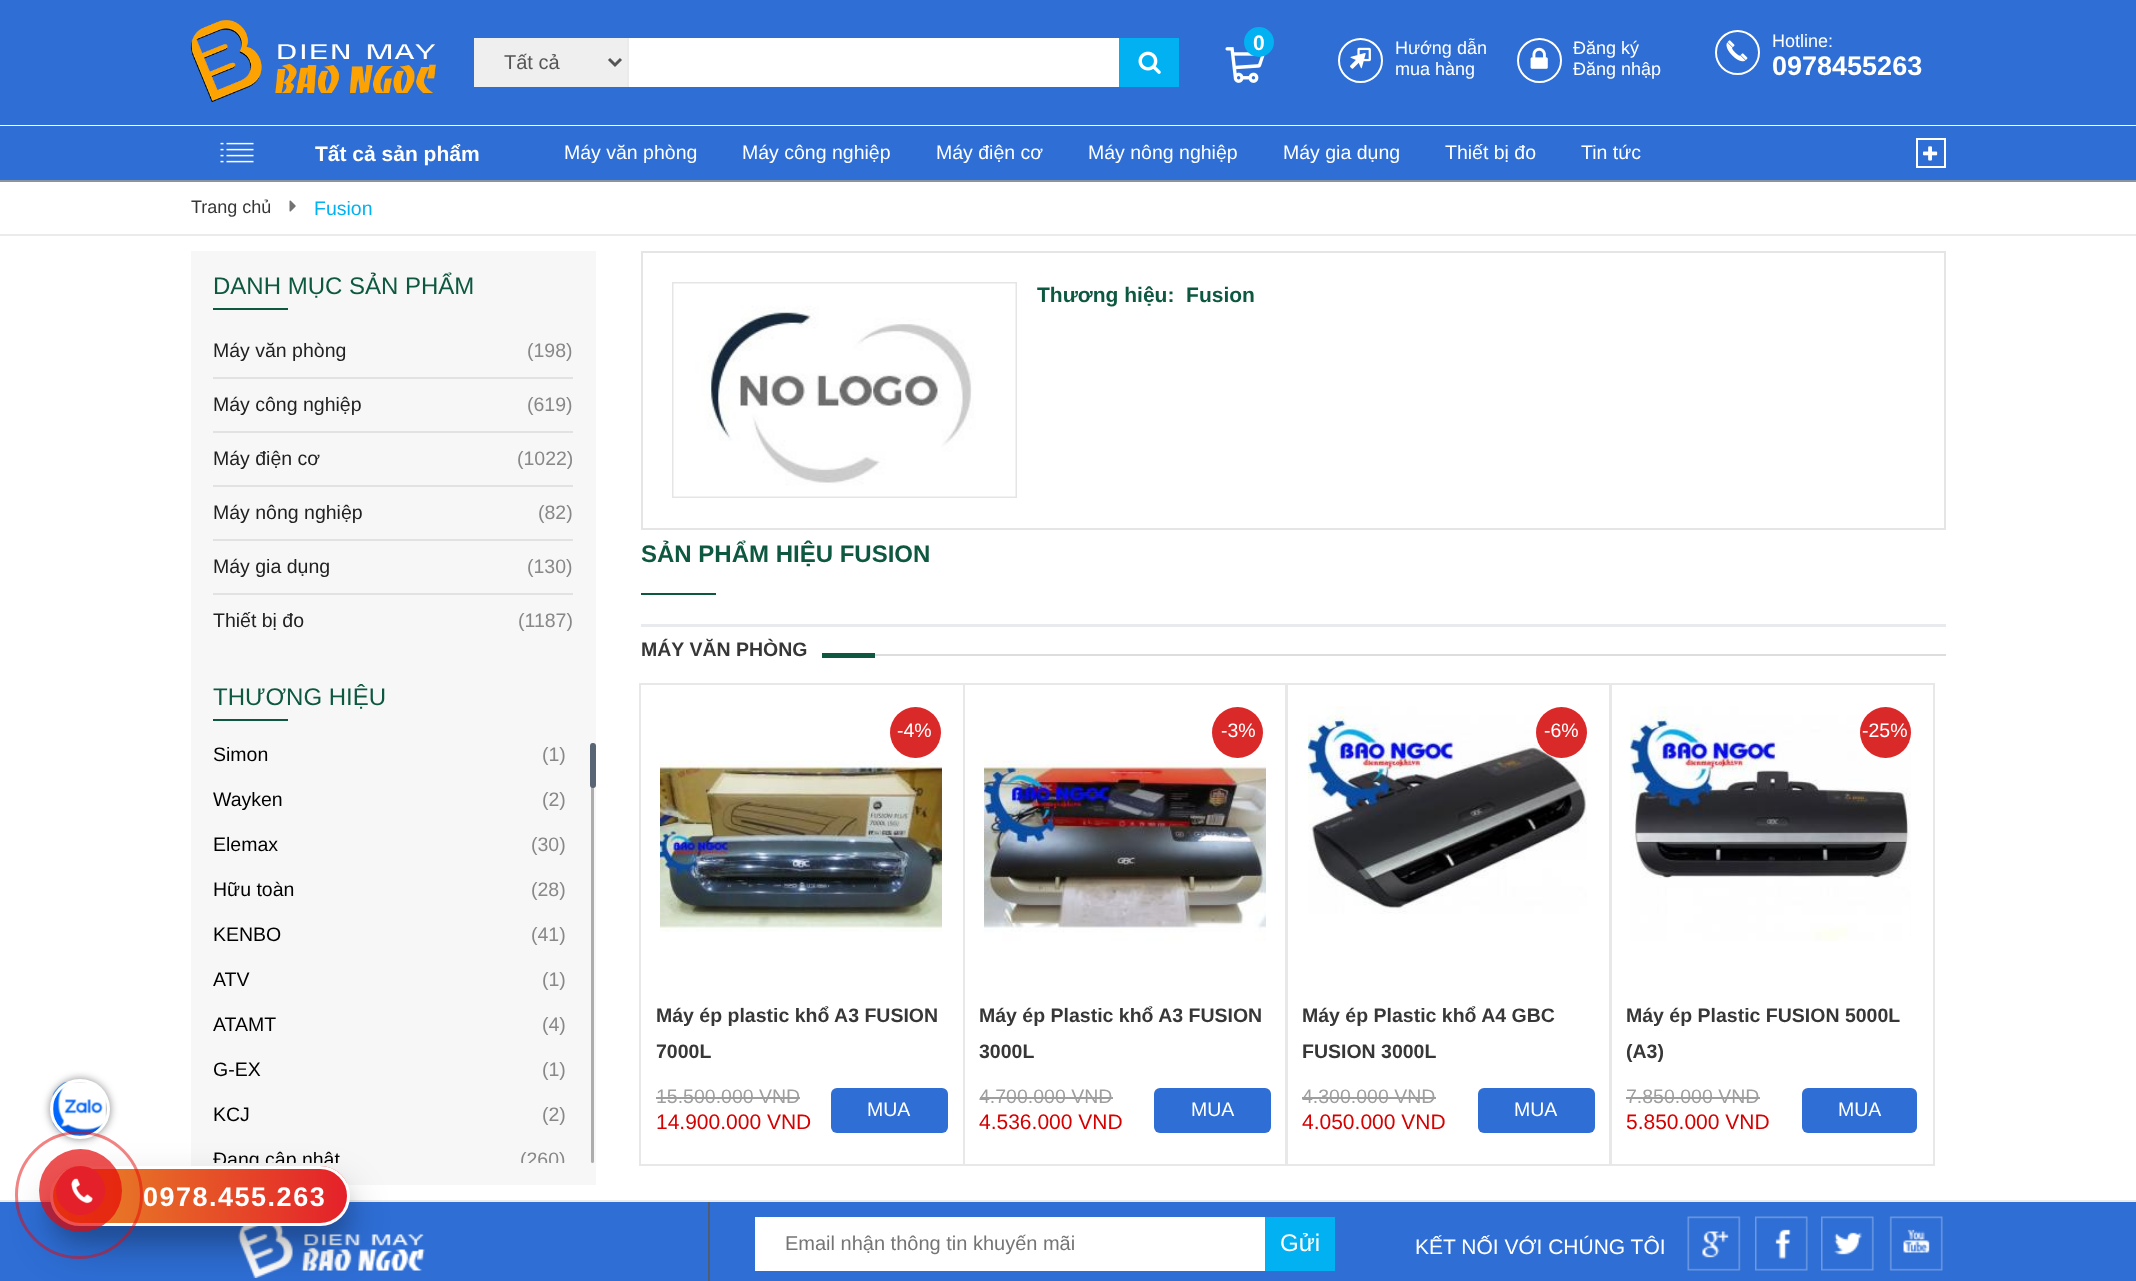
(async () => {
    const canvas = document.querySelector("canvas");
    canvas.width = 2136;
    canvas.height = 1281;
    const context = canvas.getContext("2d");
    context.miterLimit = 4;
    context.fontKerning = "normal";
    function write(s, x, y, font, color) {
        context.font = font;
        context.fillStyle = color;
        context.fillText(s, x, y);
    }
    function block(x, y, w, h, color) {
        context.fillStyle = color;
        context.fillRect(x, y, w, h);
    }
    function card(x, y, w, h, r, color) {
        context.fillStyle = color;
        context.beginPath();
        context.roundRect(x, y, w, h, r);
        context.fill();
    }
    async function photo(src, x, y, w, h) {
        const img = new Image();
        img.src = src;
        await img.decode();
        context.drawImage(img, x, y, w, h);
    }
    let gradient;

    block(0, 0, 2136, 1281, "rgb(255, 255, 255)");
    block(0, 0, 2136, 125, "rgb(46, 110, 213)");
    await photo("media/1.png", 190, 20, 246, 82);
    block(474, 38, 153, 49, "rgb(239, 239, 239)");
    block(627, 38, 2, 49, "rgb(235, 235, 235)");
    context.beginPath();
    context.moveTo(609, 59);
    context.lineTo(615, 65);
    context.lineTo(621, 59);
    context.strokeStyle = "rgb(85, 85, 85)";
    context.lineWidth = 3;
    context.stroke();
    write("Tất cả", 504, 69, "20px Liberation Sans", "rgb(85, 85, 85)");
    block(629, 38, 490, 49, "rgb(255, 255, 255)");
    block(1119, 38, 60, 49, "rgb(2, 177, 242)");
    await photo("media/2.png", 1138, 51, 23, 23);
    await photo("media/3.png", 1225, 47, 40, 36);
    context.beginPath();
    context.arc(1259, 42, 15, 0, Math.PI * 2);
    context.fill();
    write("0", 1253, 50, "bold 21px Liberation Sans", "rgb(255, 255, 255)");
    context.beginPath();
    context.arc(1360.5, 60.5, 21.5, 0, Math.PI * 2);
    context.strokeStyle = "rgb(255, 255, 255)";
    context.lineWidth = 2;
    context.stroke();
    await photo("media/4.png", 1350, 47, 21, 22);
    write("Hướng dẫn", 1395, 54, "18px Liberation Sans", "rgb(255, 255, 255)");
    write("mua hàng", 1395, 75, "18px Liberation Sans", "rgb(255, 255, 255)");
    context.beginPath();
    context.arc(1539.5, 60.5, 21.5, 0, Math.PI * 2);
    context.stroke();
    await photo("media/5.png", 1530, 47, 18, 22);
    write("Đăng ký", 1573, 54, "18px Liberation Sans", "rgb(255, 255, 255)");
    write("Đăng nhập", 1573, 75, "18px Liberation Sans", "rgb(255, 255, 255)");
    context.beginPath();
    context.arc(1737.5, 52.5, 21.5, 0, Math.PI * 2);
    context.stroke();
    await photo("media/6.png", 1726, 40, 22, 22);
    write("Hotline:", 1772, 47, "18px Liberation Sans", "rgb(255, 255, 255)");
    write("0978455263", 1772, 75, "bold 27px Liberation Sans", "rgb(255, 255, 255)");
    block(0, 126, 2136, 54, "rgb(46, 110, 213)");
    block(0, 180, 2136, 2, "rgb(138, 147, 158)");
    await photo("media/7.png", 220, 142, 34, 21);
    write("Tất cả sản phẩm", 315, 161, "bold 21px Liberation Sans", "rgb(255, 255, 255)");
    write("Máy văn phòng", 564, 159, "19.5px Liberation Sans", "rgb(255, 255, 255)");
    write("Máy công nghiệp", 742, 159, "19.5px Liberation Sans", "rgb(255, 255, 255)");
    write("Máy điện cơ", 936, 159, "19.5px Liberation Sans", "rgb(255, 255, 255)");
    write("Máy nông nghiệp", 1088, 159, "19.5px Liberation Sans", "rgb(255, 255, 255)");
    write("Máy gia dụng", 1283, 159, "19.5px Liberation Sans", "rgb(255, 255, 255)");
    write("Thiết bị đo", 1445, 159, "19.5px Liberation Sans", "rgb(255, 255, 255)");
    write("Tin tức", 1581, 159, "19.5px Liberation Sans", "rgb(255, 255, 255)");
    context.strokeRect(1917, 139, 28, 28);
    await photo("media/8.png", 1923, 146, 15, 15);
    block(0, 234, 2136, 2, "rgb(235, 235, 235)");
    write("Trang chủ", 191, 213, "18px Liberation Sans", "rgb(55, 55, 55)");
    await photo("media/9.png", 289, 200, 7, 12);
    write("Fusion", 314, 215, "19.5px Liberation Sans", "rgb(2, 177, 242)");
    context.fillStyle = "rgb(136, 136, 136)";
    context.filter = "blur(4px)";
    context.beginPath();
    context.roundRect(50, 1079, 60, 60, 30);
    context.fill();
    context.filter = "none";
    await photo("media/10.png", 52, 1081, 55, 55);
    context.beginPath();
    context.arc(80, 1109, 28.5, 0, Math.PI * 2);
    context.lineWidth = 3;
    context.stroke();
    block(0, 1200, 2136, 2, "rgb(235, 235, 235)");
    block(191, 251, 405, 934, "rgb(247, 247, 247)");
    write("DANH MỤC SẢN PHẨM", 213, 294, "24px Liberation Sans", "rgb(14, 88, 65)");
    block(213, 308, 75, 2, "rgb(14, 88, 65)");
    block(213, 377, 360, 2, "rgb(226, 226, 226)");
    write("Máy văn phòng", 213, 357, "19.5px Liberation Sans", "rgb(33, 33, 33)");
    write("(198)", 527, 357, "19.5px Liberation Sans", "rgb(136, 136, 136)");
    block(213, 431, 360, 2, "rgb(226, 226, 226)");
    write("Máy công nghiệp", 213, 411, "19.5px Liberation Sans", "rgb(33, 33, 33)");
    write("(619)", 527, 411, "19.5px Liberation Sans", "rgb(136, 136, 136)");
    block(213, 485, 360, 2, "rgb(226, 226, 226)");
    write("Máy điện cơ", 213, 465, "19.5px Liberation Sans", "rgb(33, 33, 33)");
    write("(1022)", 517, 465, "19.5px Liberation Sans", "rgb(136, 136, 136)");
    block(213, 539, 360, 2, "rgb(226, 226, 226)");
    write("Máy nông nghiệp", 213, 519, "19.5px Liberation Sans", "rgb(33, 33, 33)");
    write("(82)", 538, 519, "19.5px Liberation Sans", "rgb(136, 136, 136)");
    block(213, 593, 360, 2, "rgb(226, 226, 226)");
    write("Máy gia dụng", 213, 573, "19.5px Liberation Sans", "rgb(33, 33, 33)");
    write("(130)", 527, 573, "19.5px Liberation Sans", "rgb(136, 136, 136)");
    write("Thiết bị đo", 213, 627, "19.5px Liberation Sans", "rgb(33, 33, 33)");
    write("(1187)", 518, 627, "19.5px Liberation Sans", "rgb(136, 136, 136)");
    write("THƯƠNG HIỆU", 213, 705, "24px Liberation Sans", "rgb(14, 88, 65)");
    block(213, 719, 75, 2, "rgb(14, 88, 65)");
    write("Simon", 213, 761, "19.5px Liberation Sans", "rgb(0, 0, 0)");
    write("(1)", 542, 761, "19.5px Liberation Sans", "rgb(136, 136, 136)");
    write("Wayken", 213, 806, "19.5px Liberation Sans", "rgb(0, 0, 0)");
    write("(2)", 542, 806, "19.5px Liberation Sans", "rgb(136, 136, 136)");
    write("Elemax", 213, 851, "19.5px Liberation Sans", "rgb(0, 0, 0)");
    write("(30)", 531, 851, "19.5px Liberation Sans", "rgb(136, 136, 136)");
    write("Hữu toàn", 213, 896, "19.5px Liberation Sans", "rgb(0, 0, 0)");
    write("(28)", 531, 896, "19.5px Liberation Sans", "rgb(136, 136, 136)");
    write("KENBO", 213, 941, "19.5px Liberation Sans", "rgb(0, 0, 0)");
    write("(41)", 531, 941, "19.5px Liberation Sans", "rgb(136, 136, 136)");
    write("ATV", 213, 986, "19.5px Liberation Sans", "rgb(0, 0, 0)");
    write("(1)", 542, 986, "19.5px Liberation Sans", "rgb(136, 136, 136)");
    write("ATAMT", 213, 1031, "19.5px Liberation Sans", "rgb(0, 0, 0)");
    write("(4)", 542, 1031, "19.5px Liberation Sans", "rgb(136, 136, 136)");
    write("G-EX", 213, 1076, "19.5px Liberation Sans", "rgb(0, 0, 0)");
    write("(1)", 542, 1076, "19.5px Liberation Sans", "rgb(136, 136, 136)");
    write("KCJ", 213, 1121, "19.5px Liberation Sans", "rgb(0, 0, 0)");
    write("(2)", 542, 1121, "19.5px Liberation Sans", "rgb(136, 136, 136)");
    context.save();
    context.beginPath();
    context.rect(191, 743, 382, 420);
    context.clip();
    write("Đang cập nhât", 213, 1166, "19.5px Liberation Sans", "rgb(0, 0, 0)");
    write("(260)", 520, 1166, "19.5px Liberation Sans", "rgb(136, 136, 136)");
    context.restore();
    card(591, 743, 3, 420, 1.5, "rgb(173, 173, 173)");
    card(590, 743, 6, 45, 3, "rgb(88, 101, 117)");
    context.strokeStyle = "rgb(229, 229, 229)";
    context.lineWidth = 2;
    context.strokeRect(642, 252, 1303, 277);
    context.strokeRect(673, 283, 343, 214);
    await photo("media/11.png", 673, 283, 343, 214);
    write("Thương hiệu:  Fusion", 1037, 302, "bold 21px Liberation Sans", "rgb(14, 88, 65)");
    write("SẢN PHẨM HIỆU FUSION", 641, 562, "bold 24px Liberation Sans", "rgb(14, 88, 65)");
    block(641, 593, 75, 2, "rgb(14, 88, 65)");
    block(641, 624, 1305, 3, "rgb(232, 234, 238)");
    write("MÁY VĂN PHÒNG", 641, 656, "bold 19.5px Liberation Sans", "rgb(55, 55, 55)");
    block(822, 653, 53, 5, "rgb(14, 88, 65)");
    block(875, 654, 1071, 2, "rgb(221, 221, 221)");
    context.strokeStyle = "rgb(232, 232, 232)";
    context.strokeRect(640, 684, 324, 481);
    context.fillStyle = "rgb(218, 41, 41)";
    context.beginPath();
    context.arc(915.5, 732.5, 25.5, 0, Math.PI * 2);
    context.fill();
    write("-4%", 897, 737, "19.5px Liberation Sans", "rgb(255, 255, 255)");
    await photo("media/12.png", 660, 760, 282, 172);
    write("Máy ép plastic khổ A3 FUSION", 656, 1022, "bold 19.5px Liberation Sans", "rgb(55, 55, 55)");
    write("7000L", 656, 1058, "bold 19.5px Liberation Sans", "rgb(55, 55, 55)");
    write("15.500.000 VND", 656, 1103, "19.5px Liberation Sans", "rgb(158, 158, 158)");
    block(656, 1097, 144, 2, "rgb(158, 158, 158)");
    write("14.900.000 VND", 656, 1129, "21px Liberation Sans", "rgb(213, 0, 0)");
    card(831, 1088, 117, 45, 6, "rgb(46, 110, 213)");
    write("MUA", 867, 1116, "19.5px Liberation Sans", "rgb(255, 255, 255)");
    context.strokeRect(964, 684, 322, 481);
    context.fillStyle = "rgb(218, 41, 41)";
    context.beginPath();
    context.arc(1237.5, 732.5, 25.5, 0, Math.PI * 2);
    context.fill();
    write("-3%", 1221, 737, "19.5px Liberation Sans", "rgb(255, 255, 255)");
    await photo("media/13.png", 984, 760, 282, 181);
    write("Máy ép Plastic khổ A3 FUSION", 979, 1022, "bold 19.5px Liberation Sans", "rgb(55, 55, 55)");
    write("3000L", 979, 1058, "bold 19.5px Liberation Sans", "rgb(55, 55, 55)");
    write("4.700.000 VND", 979, 1103, "19.5px Liberation Sans", "rgb(158, 158, 158)");
    block(980, 1097, 133, 2, "rgb(158, 158, 158)");
    write("4.536.000 VND", 979, 1129, "21px Liberation Sans", "rgb(213, 0, 0)");
    card(1154, 1088, 117, 45, 6, "rgb(46, 110, 213)");
    write("MUA", 1191, 1116, "19.5px Liberation Sans", "rgb(255, 255, 255)");
    context.strokeRect(1287, 684, 323, 481);
    await photo("media/14.png", 1308, 706, 279, 208);
    context.fillStyle = "rgb(218, 41, 41)";
    context.beginPath();
    context.arc(1561.5, 732.5, 25.5, 0, Math.PI * 2);
    context.fill();
    write("-6%", 1544, 737, "19.5px Liberation Sans", "rgb(255, 255, 255)");
    write("Máy ép Plastic khổ A4 GBC", 1302, 1022, "bold 19.5px Liberation Sans", "rgb(55, 55, 55)");
    write("FUSION 3000L", 1302, 1058, "bold 19.5px Liberation Sans", "rgb(55, 55, 55)");
    write("4.300.000 VND", 1302, 1103, "19.5px Liberation Sans", "rgb(158, 158, 158)");
    block(1302, 1097, 134, 2, "rgb(158, 158, 158)");
    write("4.050.000 VND", 1302, 1129, "21px Liberation Sans", "rgb(213, 0, 0)");
    card(1478, 1088, 117, 45, 6, "rgb(46, 110, 213)");
    write("MUA", 1514, 1116, "19.5px Liberation Sans", "rgb(255, 255, 255)");
    context.strokeRect(1611, 684, 323, 481);
    await photo("media/15.png", 1630, 706, 281, 235);
    context.fillStyle = "rgb(218, 41, 41)";
    context.beginPath();
    context.arc(1885.5, 732.5, 25.5, 0, Math.PI * 2);
    context.fill();
    write("-25%", 1862, 737, "19.5px Liberation Sans", "rgb(255, 255, 255)");
    write("Máy ép Plastic FUSION 5000L", 1626, 1022, "bold 19.5px Liberation Sans", "rgb(55, 55, 55)");
    write("(A3)", 1626, 1058, "bold 19.5px Liberation Sans", "rgb(55, 55, 55)");
    write("7.850.000 VND", 1626, 1103, "19.5px Liberation Sans", "rgb(158, 158, 158)");
    block(1626, 1097, 134, 2, "rgb(158, 158, 158)");
    write("5.850.000 VND", 1626, 1129, "21px Liberation Sans", "rgb(213, 0, 0)");
    card(1802, 1088, 115, 45, 6, "rgb(46, 110, 213)");
    write("MUA", 1838, 1116, "19.5px Liberation Sans", "rgb(255, 255, 255)");
    block(0, 1202, 2136, 79, "rgb(46, 110, 213)");
    await photo("media/17.png", 238, 1226, 187, 52);
    context.fillStyle = "rgba(0, 0, 0, 0.1)";
    context.filter = "blur(7.5px)";
    context.beginPath();
    context.roundRect(50, 1181, 300, 60, 30);
    context.fill();
    context.filter = "none";
    context.fillStyle = "rgba(0, 0, 0, 0.25)";
    context.filter = "blur(21px)";
    context.beginPath();
    context.roundRect(50, 1187, 300, 60, 30);
    context.fill();
    context.filter = "none";
    context.save();
    context.beginPath();
    context.roundRect(50, 1166, 300, 60, 30);
    context.clip();
    gradient = context.createLinearGradient(53, 1196, 347, 1196);
    gradient.addColorStop(0, "rgb(232, 138, 37)");
    gradient.addColorStop(1, "rgb(228, 33, 42)");
    context.fillStyle = gradient;
    context.fillRect(53, 1166, 294, 60);
    context.restore();
    context.beginPath();
    context.roundRect(51.5, 1167.5, 297, 57, 28.5);
    context.strokeStyle = "rgb(255, 255, 255)";
    context.lineWidth = 3;
    context.stroke();
    context.beginPath();
    context.arc(79, 1195, 62.5, 0, Math.PI * 2);
    context.strokeStyle = "rgba(230, 8, 8, 0.5)";
    context.stroke();
    context.fillStyle = "rgba(230, 8, 8, 0.7)";
    context.beginPath();
    context.arc(80.5, 1190.5, 41.5, 0, Math.PI * 2);
    context.fill();
    context.fillStyle = "rgb(228, 33, 42)";
    context.beginPath();
    context.arc(80.5, 1190.5, 24.5, 0, Math.PI * 2);
    context.fill();
    await photo("media/16.png", 71, 1178, 22, 26);
    context.letterSpacing = "1.5px";
    write("0978.455.263", 143, 1206, "bold 27px Liberation Sans", "rgb(255, 255, 255)");
    block(708, 1202, 2, 79, "rgb(79, 93, 110)");
    block(755, 1217, 510, 54, "rgb(255, 255, 255)");
    context.letterSpacing = "0px";
    write("Email nhận thông tin khuyến mãi", 785, 1250, "20px Liberation Sans", "rgb(117, 117, 117)");
    block(1265, 1217, 70, 54, "rgb(2, 177, 242)");
    write("Gửi", 1280, 1251, "24px Liberation Sans", "rgb(255, 255, 255)");
    write("KẾT NỐI VỚI CHÚNG TÔI", 1415, 1254, "21px Liberation Sans", "rgb(255, 255, 255)");
    await photo("media/18.png", 1687, 1216, 54, 55);
    await photo("media/19.png", 1755, 1216, 53, 55);
    await photo("media/20.png", 1821, 1216, 53, 55);
    await photo("media/21.png", 1889, 1216, 54, 55);
})();
